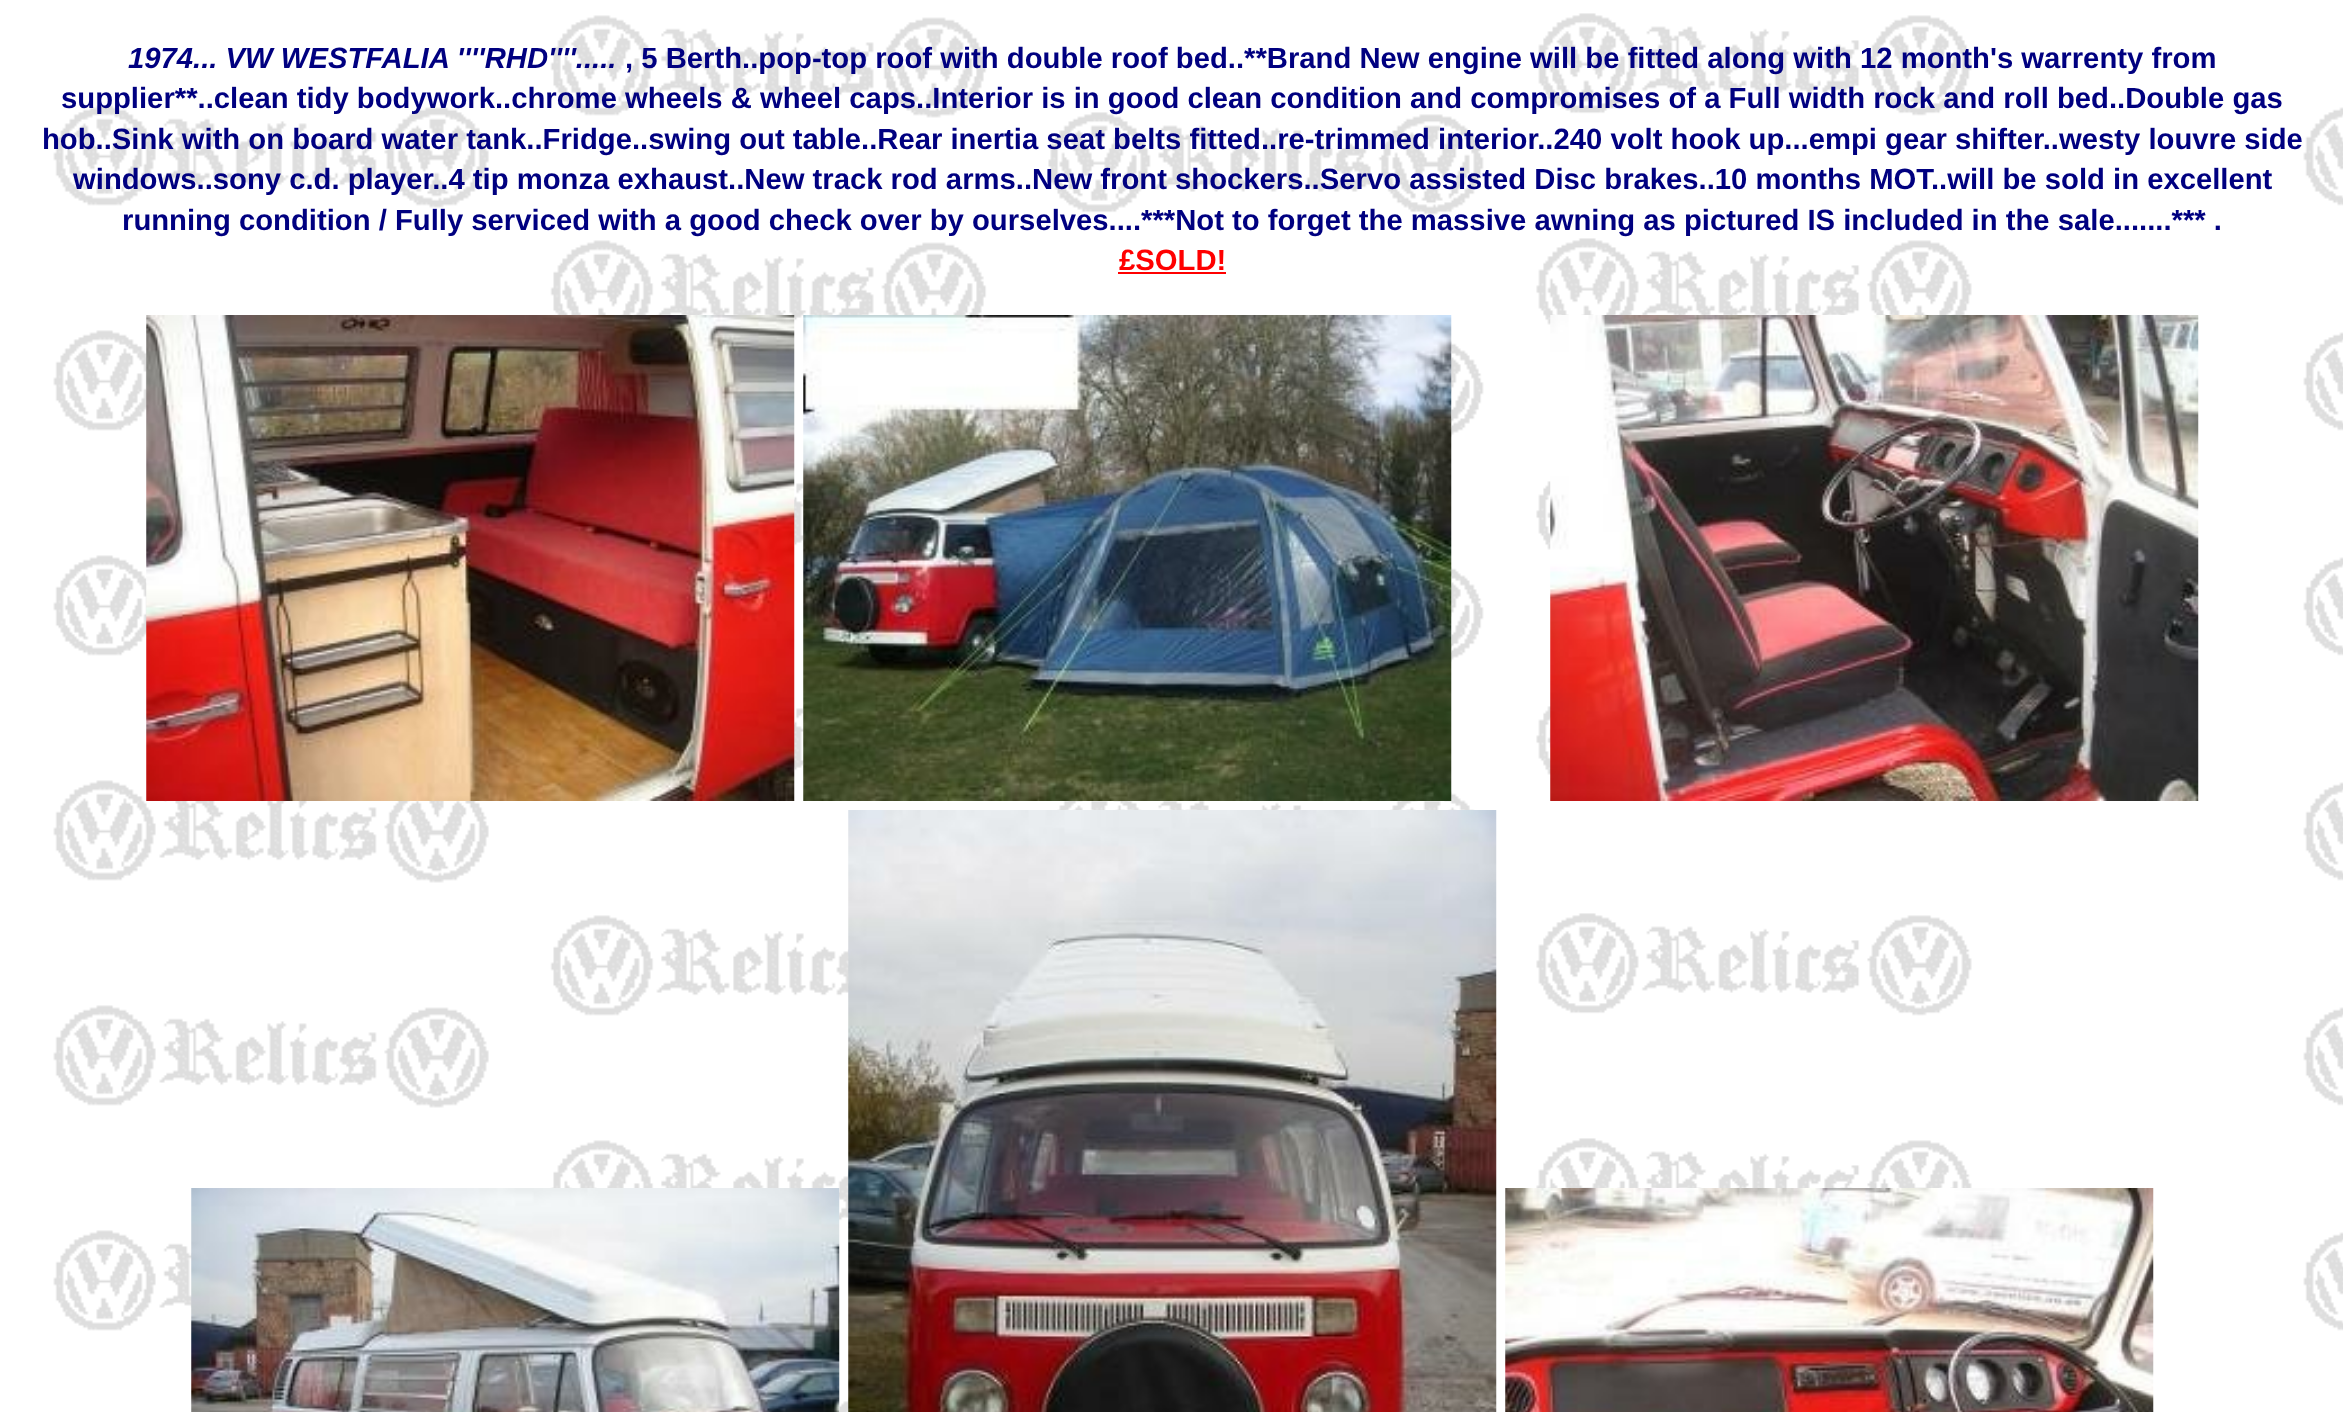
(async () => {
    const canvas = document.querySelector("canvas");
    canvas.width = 2343;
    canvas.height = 1412;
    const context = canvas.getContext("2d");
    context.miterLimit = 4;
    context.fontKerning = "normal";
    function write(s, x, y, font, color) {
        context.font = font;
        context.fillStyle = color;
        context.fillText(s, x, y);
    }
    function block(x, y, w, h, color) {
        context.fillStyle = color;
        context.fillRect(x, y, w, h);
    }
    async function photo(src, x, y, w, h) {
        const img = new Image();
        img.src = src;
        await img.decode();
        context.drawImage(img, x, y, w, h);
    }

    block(0, 0, 2343, 1412, "rgb(255, 255, 255)");
    await photo("media/1.png", 53, 13, 2290, 1399);
    write("1974... VW WESTFALIA ''''RHD''''.....", 128, 68, "italic bold 29.25px Liberation Sans", "rgb(0, 0, 128)");
    write(", 5 Berth..pop-top roof with double roof bed..**Brand New engine will be fitted along with 12 month's warrenty from", 625, 68, "bold 29.25px Liberation Sans", "rgb(0, 0, 128)");
    write("supplier**..clean tidy bodywork..chrome wheels & wheel caps..Interior is in good clean condition and compromises of a Full width rock and roll bed..Double gas", 61, 108, "bold 29.25px Liberation Sans", "rgb(0, 0, 128)");
    write("hob..Sink with on board water tank..Fridge..swing out table..Rear inertia seat belts fitted..re-trimmed interior..240 volt hook up...empi gear shifter..westy louvre side", 42, 149, "bold 29.25px Liberation Sans", "rgb(0, 0, 128)");
    write("windows..sony c.d. player..4 tip monza exhaust..New track rod arms..New front shockers..Servo assisted Disc brakes..10 months MOT..will be sold in excellent", 73, 189, "bold 29.25px Liberation Sans", "rgb(0, 0, 128)");
    write("running condition / Fully serviced with a good check over by ourselves....***Not to forget the massive awning as pictured IS included in the sale.......*** .", 122, 230, "bold 29.25px Liberation Sans", "rgb(0, 0, 128)");
    write("£SOLD!", 1119, 270, "bold 29.25px Liberation Sans", "rgb(255, 0, 0)");
    block(1118, 272, 108, 2, "rgb(255, 0, 0)");
    await photo("media/2.png", 146, 315, 649, 486);
    await photo("media/3.png", 803, 315, 649, 486);
    await photo("media/4.png", 1550, 315, 649, 486);
    await photo("media/5.png", 191, 1188, 649, 224);
    await photo("media/6.png", 848, 810, 649, 602);
    await photo("media/7.png", 1505, 1188, 649, 224);
})();
